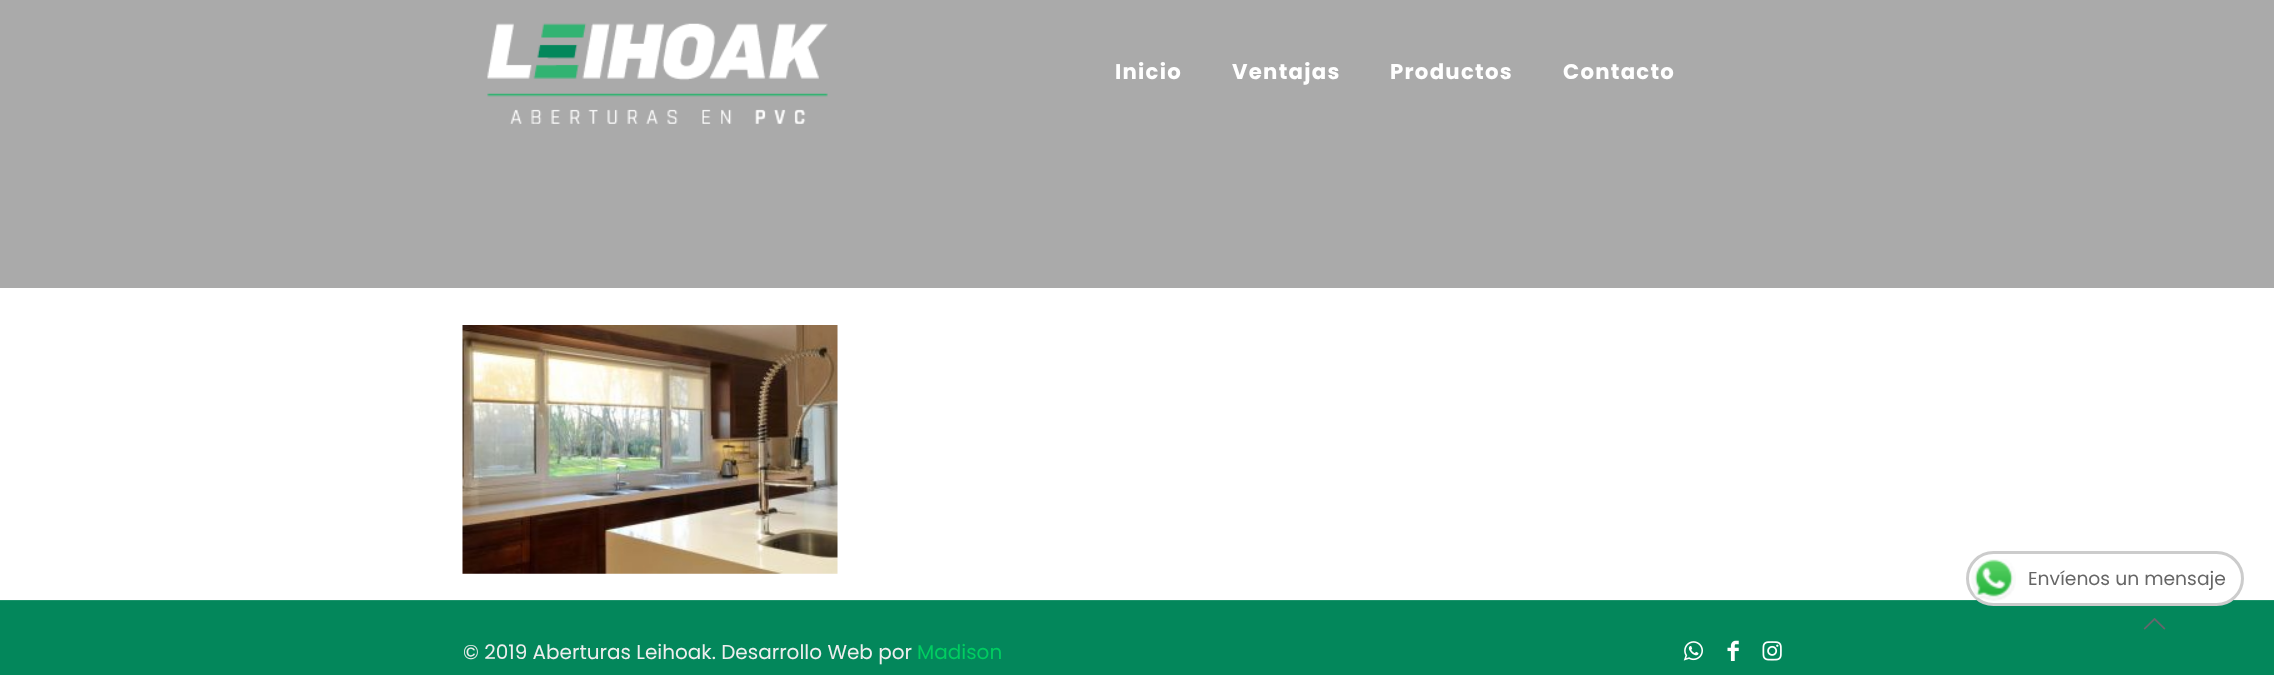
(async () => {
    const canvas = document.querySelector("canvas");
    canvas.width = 2274;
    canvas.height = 675;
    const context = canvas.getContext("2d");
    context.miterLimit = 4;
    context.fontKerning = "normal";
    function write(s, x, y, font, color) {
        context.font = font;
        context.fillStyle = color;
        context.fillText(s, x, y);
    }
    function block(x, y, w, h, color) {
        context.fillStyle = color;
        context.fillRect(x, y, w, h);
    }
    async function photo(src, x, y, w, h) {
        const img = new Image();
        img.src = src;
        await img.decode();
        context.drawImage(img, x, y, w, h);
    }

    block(0, 0, 2274, 675, "rgb(255, 255, 255)");
    block(0, 0, 2274, 288, "rgb(170, 170, 170)");
    await photo("media/1.png", 487, 23, 341, 101);
    context.letterSpacing = "1.25px";
    write("Inicio", 1115, 79, "bold 21.25px Poppins", "rgb(255, 255, 255)");
    write("Ventajas", 1232, 79, "bold 21.25px Poppins", "rgb(255, 255, 255)");
    write("Productos", 1390, 79, "bold 21.25px Poppins", "rgb(255, 255, 255)");
    write("Contacto", 1563, 79, "bold 21.25px Poppins", "rgb(255, 255, 255)");
    await photo("media/2.png", 462, 325, 376, 249);
    block(0, 601, 2274, 74, "rgb(3, 135, 91)");
    block(0, 600, 2274, 1, "rgb(28, 147, 107)");
    context.letterSpacing = "0px";
    write("© 2019 Aberturas Leihoak. Desarrollo Web por", 463, 659, "20px Poppins", "rgb(238, 238, 238)");
    write("Madison", 917, 659, "20px Poppins", "rgb(1, 205, 97)");
    await photo("media/3.png", 1683, 641, 20, 20);
    await photo("media/4.png", 1727, 640, 12, 21);
    await photo("media/5.png", 1762, 641, 20, 20);
    context.fillStyle = "rgb(255, 255, 255)";
    context.beginPath();
    context.roundRect(1967.5, 552.5, 275, 52, 26);
    context.fill();
    context.strokeStyle = "rgb(204, 204, 204)";
    context.lineWidth = 3;
    context.stroke();
    await photo("media/6.png", 1971, 559, 45, 42);
    write("Envíenos un mensaje", 2028, 585, "18.75px Poppins", "rgb(102, 102, 102)");
    await photo("media/7.png", 2143, 618, 23, 12);
})();
